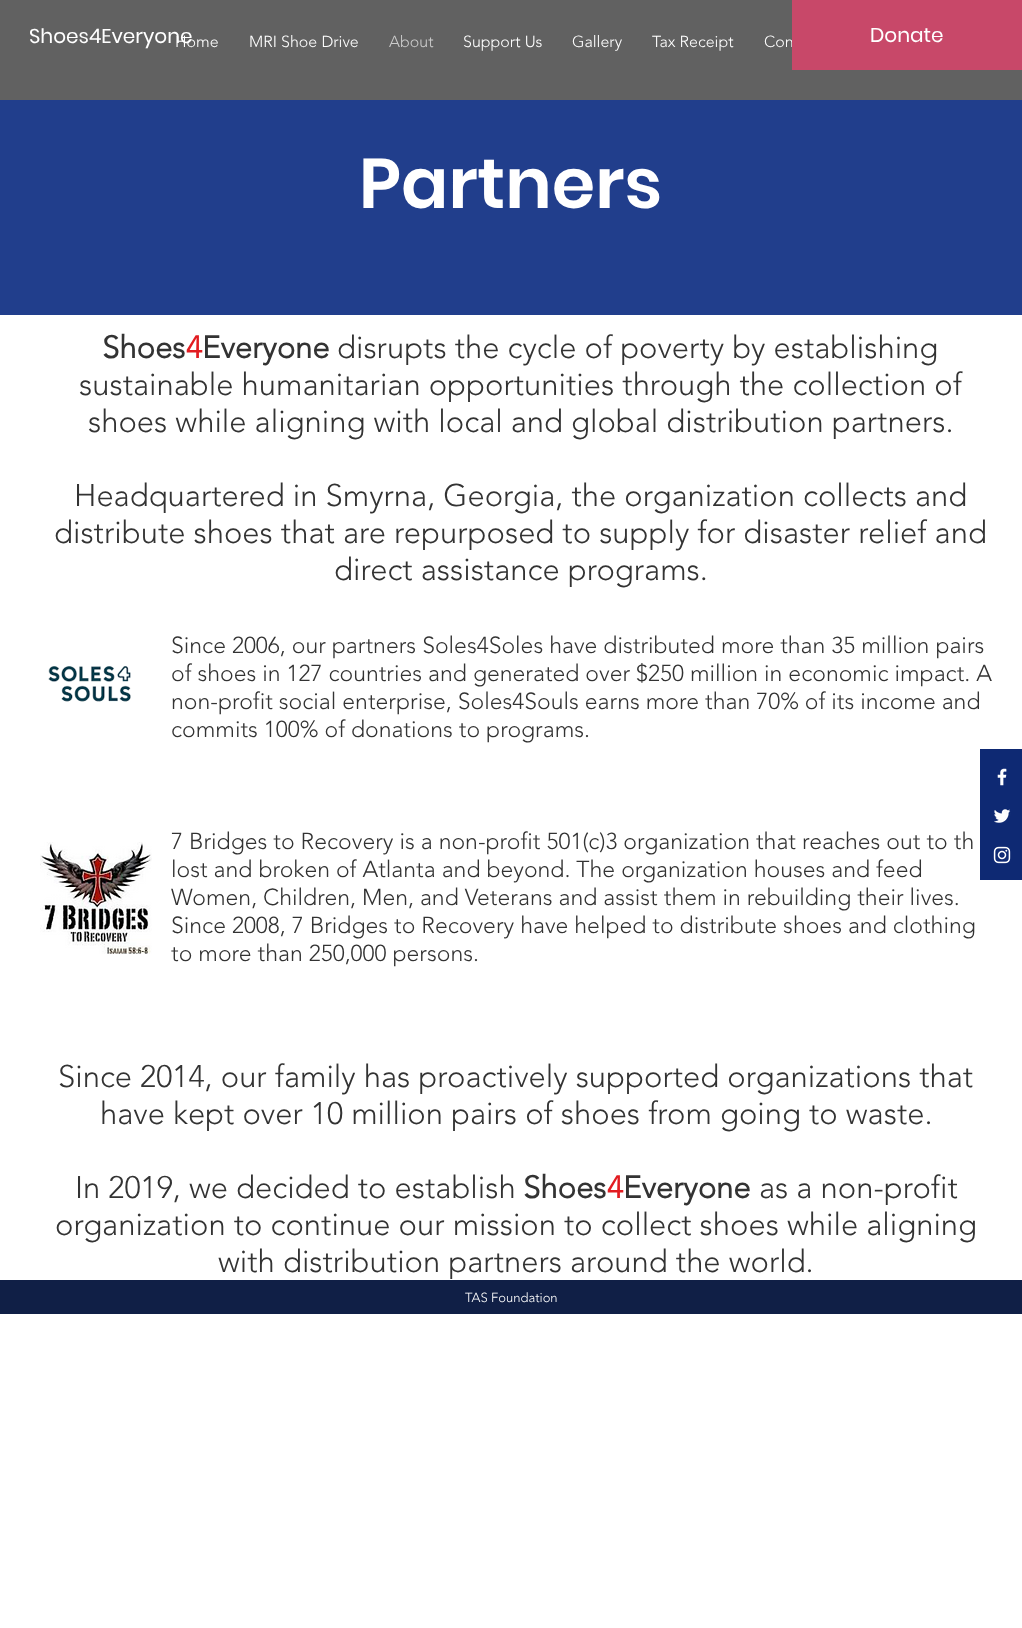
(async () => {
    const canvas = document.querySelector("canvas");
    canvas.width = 1022;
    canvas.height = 1628;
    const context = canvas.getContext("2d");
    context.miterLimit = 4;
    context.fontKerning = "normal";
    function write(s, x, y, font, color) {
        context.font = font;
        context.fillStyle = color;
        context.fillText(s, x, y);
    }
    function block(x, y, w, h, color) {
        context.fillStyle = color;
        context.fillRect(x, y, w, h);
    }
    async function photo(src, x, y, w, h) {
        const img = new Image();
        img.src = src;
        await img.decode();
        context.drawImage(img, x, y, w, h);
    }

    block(0, 0, 1022, 1628, "rgb(255, 255, 255)");
    block(0, 0, 1022, 100, "rgb(97, 97, 97)");
    write("Home", 175, 47, "300 16px 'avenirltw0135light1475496'", "rgb(255, 255, 255)");
    write("Shoes4Everyone", 29, 43, "20px Poppins", "rgb(255, 255, 255)");
    write("MRI Shoe Drive", 249, 47, "300 16px 'avenirltw0135light1475496'", "rgb(255, 255, 255)");
    write("About", 389, 47, "300 16px 'avenirltw0135light1475496'", "rgb(204, 204, 204)");
    write("Support Us", 463, 47, "300 16px 'avenirltw0135light1475496'", "rgb(255, 255, 255)");
    write("Gallery", 572, 47, "300 16px 'avenirltw0135light1475496'", "rgb(255, 255, 255)");
    write("Tax Receipt", 652, 47, "300 16px 'avenirltw0135light1475496'", "rgb(255, 255, 255)");
    write("Con", 764, 47, "300 16px 'avenirltw0135light1475496'", "rgb(255, 255, 255)");
    block(792, 0, 230, 70, "rgb(200, 72, 105)");
    write("Donate", 870, 42, "20px Poppins", "rgb(255, 255, 255)");
    block(0, 100, 1022, 215, "rgb(33, 62, 140)");
    write("Partners", 359, 208, "600 70px Poppins", "rgb(255, 255, 255)");
    write("Shoes", 102, 358, "bold 31px 'avenirltw0135light1475496'", "rgb(51, 51, 51)");
    write("4", 186, 358, "bold 31px 'avenirltw0135light1475496'", "rgb(226, 28, 33)");
    write("Everyone", 202, 358, "bold 31px 'avenirltw0135light1475496'", "rgb(51, 51, 51)");
    write("disrupts the cycle of poverty by establishing", 337, 358, "300 31px 'avenirltw0135light1475496'", "rgb(51, 51, 51)");
    write("sustainable humanitarian opportunities through the collection of", 79, 395, "300 31px 'avenirltw0135light1475496'", "rgb(51, 51, 51)");
    write("shoes while aligning with local and global distribution partners.", 88, 432, "300 31px 'avenirltw0135light1475496'", "rgb(51, 51, 51)");
    write("Headquartered in Smyrna, Georgia, the organization collects and", 74, 506, "300 31px 'avenirltw0135light1475496'", "rgb(51, 51, 51)");
    write("distribute shoes that are repurposed to supply for disaster relief and", 54, 543, "300 31px 'avenirltw0135light1475496'", "rgb(51, 51, 51)");
    write("direct assistance programs.", 334, 580, "300 31px 'avenirltw0135light1475496'", "rgb(51, 51, 51)");
    await photo("media/1.png", 48, 666, 83, 36);
    write("Since 2006, our partners Soles4Soles have distributed more than 35 million pairs", 171, 653, "300 23px 'avenirltw0135light1475496'", "rgb(51, 51, 51)");
    write("of shoes in 127 countries and generated over $250 million in economic impact. A", 171, 681, "300 23px 'avenirltw0135light1475496'", "rgb(51, 51, 51)");
    write("non-profit social enterprise, Soles4Souls earns more than 70% of its income and", 171, 709, "300 23px 'avenirltw0135light1475496'", "rgb(51, 51, 51)");
    write("commits 100% of donations to programs.", 171, 737, "300 23px 'avenirltw0135light1475496'", "rgb(51, 51, 51)");
    write("7 Bridges to Recovery is a non-profit 501(c)3 organization that reaches out to th", 171, 849, "300 23px 'avenirltw0135light1475496'", "rgb(51, 51, 51)");
    write("lost and broken of Atlanta and beyond. The organization houses and feed", 171, 877, "300 23px 'avenirltw0135light1475496'", "rgb(51, 51, 51)");
    write("Women, Children, Men, and Veterans and assist them in rebuilding their lives.", 171, 905, "300 23px 'avenirltw0135light1475496'", "rgb(51, 51, 51)");
    write("Since 2008, 7 Bridges to Recovery have helped to distribute shoes and clothing", 171, 933, "300 23px 'avenirltw0135light1475496'", "rgb(51, 51, 51)");
    write("to more than 250,000 persons.", 171, 961, "300 23px 'avenirltw0135light1475496'", "rgb(51, 51, 51)");
    await photo("media/2.png", 40, 842, 112, 112);
    write("Since 2014, our family has proactively supported organizations that", 58, 1087, "300 31px 'avenirltw0135light1475496'", "rgb(51, 51, 51)");
    write("have kept over 10 million pairs of shoes from going to waste.", 100, 1124, "300 31px 'avenirltw0135light1475496'", "rgb(51, 51, 51)");
    write("In 2019, we decided to establish", 75, 1198, "300 31px 'avenirltw0135light1475496'", "rgb(51, 51, 51)");
    write("Shoes", 523, 1198, "bold 31px 'avenirltw0135light1475496'", "rgb(51, 51, 51)");
    write("4", 607, 1198, "bold 31px 'avenirltw0135light1475496'", "rgb(226, 28, 33)");
    write("Everyone", 623, 1198, "bold 31px 'avenirltw0135light1475496'", "rgb(51, 51, 51)");
    write("as a non-profit", 759, 1198, "300 31px 'avenirltw0135light1475496'", "rgb(51, 51, 51)");
    write("organization to continue our mission to collect shoes while aligning", 55, 1235, "300 31px 'avenirltw0135light1475496'", "rgb(51, 51, 51)");
    write("with distribution partners around the world.", 218, 1272, "300 31px 'avenirltw0135light1475496'", "rgb(51, 51, 51)");
    block(980, 749, 42, 131, "rgb(14, 41, 115)");
    await photo("media/3.png", 997, 768, 10, 18);
    await photo("media/4.png", 994, 809, 17, 14);
    await photo("media/5.png", 993, 846, 18, 18);
    block(0, 1280, 1022, 34, "rgb(16, 31, 70)");
    write("TAS Foundation", 465, 1302, "300 13px 'avenirltw0135light1475496'", "rgb(255, 255, 255)");
})();
